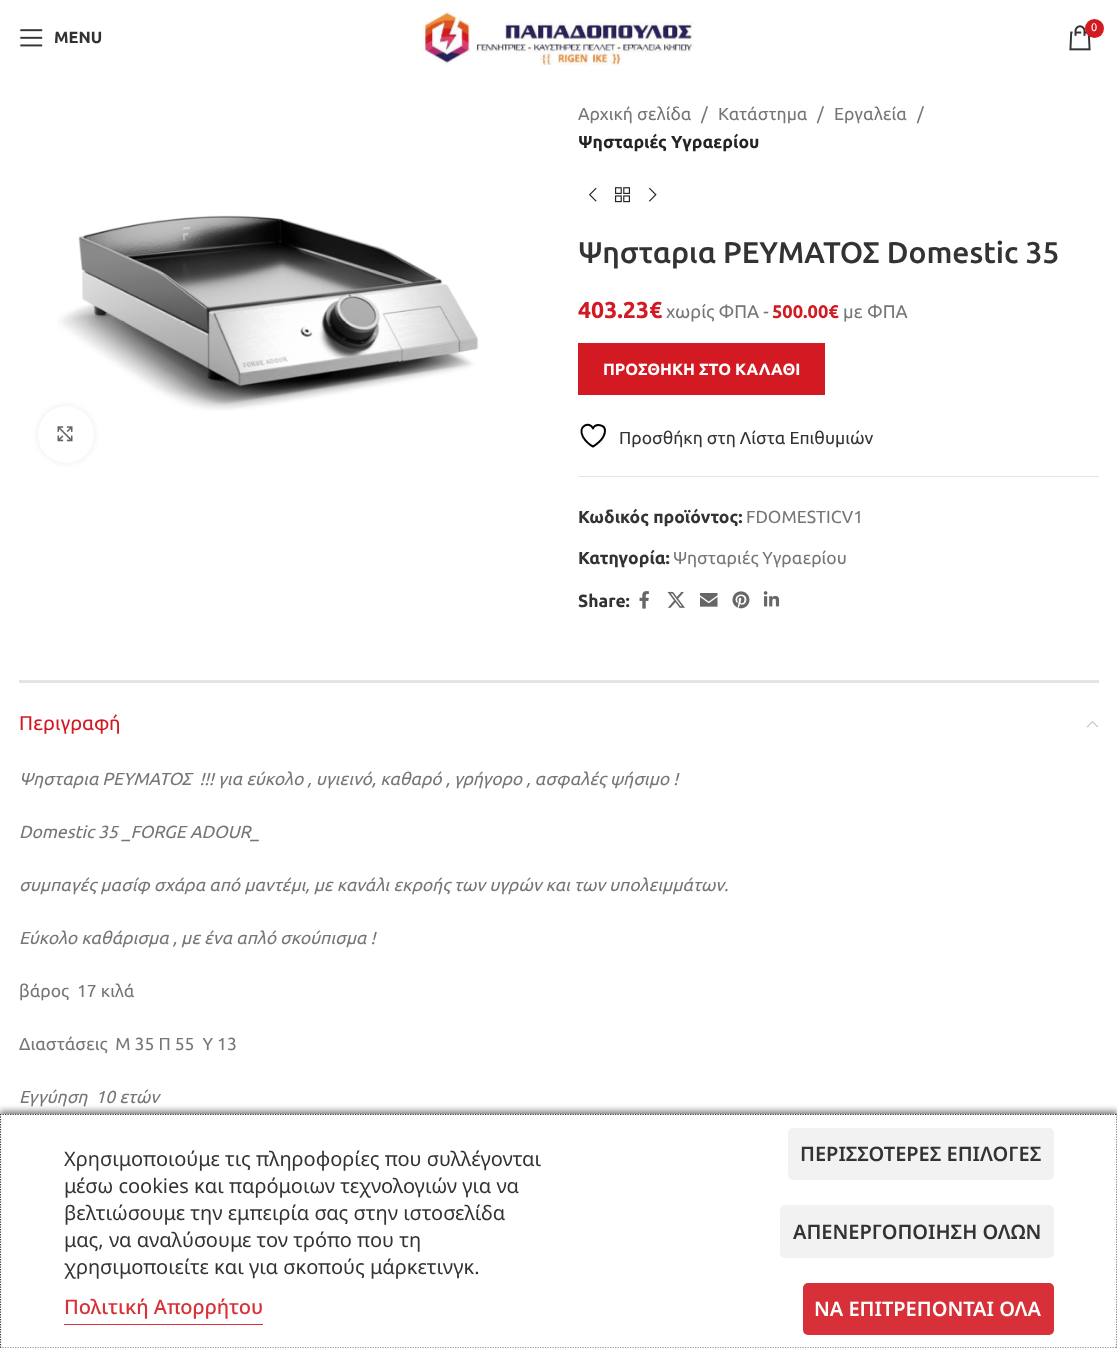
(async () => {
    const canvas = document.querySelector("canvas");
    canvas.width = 1117;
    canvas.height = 1348;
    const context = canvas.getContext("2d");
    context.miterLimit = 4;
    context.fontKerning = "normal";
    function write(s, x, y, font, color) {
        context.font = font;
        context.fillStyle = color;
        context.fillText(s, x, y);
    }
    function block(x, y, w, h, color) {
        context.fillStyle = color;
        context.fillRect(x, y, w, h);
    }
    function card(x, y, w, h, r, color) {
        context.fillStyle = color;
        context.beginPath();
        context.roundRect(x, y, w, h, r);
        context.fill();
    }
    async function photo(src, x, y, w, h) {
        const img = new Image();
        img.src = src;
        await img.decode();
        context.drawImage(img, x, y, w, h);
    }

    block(0, 0, 1117, 1348, "rgb(255, 255, 255)");
    await photo("media/1.png", 422, 12, 272, 54);
    await photo("media/2.png", 1069, 25, 22, 26);
    context.fillStyle = "rgb(211, 25, 34)";
    context.beginPath();
    context.arc(1094.5, 28.5, 9.5, 0, Math.PI * 2);
    context.fill();
    write("0", 1091, 31, "11px Ubuntu", "rgb(255, 255, 255)");
    await photo("media/3.png", 20, 29, 23, 18);
    write("MENU", 54, 43, "bold 16.25px Ubuntu", "rgb(51, 51, 51)");
    await photo("media/4.png", 57, 215, 422, 196);
    context.fillStyle = "rgba(0, 0, 0, 0.08)";
    context.filter = "blur(3px)";
    context.beginPath();
    context.roundRect(38, 406, 56, 57, 28);
    context.fill();
    context.filter = "none";
    card(38, 406, 56, 57, 28, "rgb(255, 255, 255)");
    await photo("media/5.png", 57, 426, 16, 16);
    write("Αρχική σελίδα", 578, 120, "17.5px Ubuntu", "rgb(118, 118, 118)");
    write("/", 701, 120, "17.5px Ubuntu", "rgb(118, 118, 118)");
    write("Κατάστημα", 718, 120, "17.5px Ubuntu", "rgb(118, 118, 118)");
    write("/", 817, 120, "17.5px Ubuntu", "rgb(118, 118, 118)");
    write("Εργαλεία", 834, 120, "17.5px Ubuntu", "rgb(118, 118, 118)");
    write("/", 917, 120, "17.5px Ubuntu", "rgb(118, 118, 118)");
    write("Ψησταριές Υγραερίου", 578, 148, "bold 17.5px Ubuntu", "rgb(36, 36, 36)");
    await photo("media/6.png", 588, 187, 9, 15);
    await photo("media/7.png", 615, 187, 15, 16);
    await photo("media/8.png", 648, 187, 9, 15);
    write("Ψησταρια ΡΕΥΜΑΤΟΣ Domestic 35", 578, 263, "500 30px Ubuntu", "rgb(51, 51, 51)");
    write("403.23€", 578, 318, "bold 23px Ubuntu", "rgb(211, 25, 34)");
    write("χωρίς ΦΠΑ -", 666, 318, "18.25px Ubuntu", "rgb(118, 118, 118)");
    write("500.00€", 772, 318, "bold 18.25px Ubuntu", "rgb(211, 25, 34)");
    write("με ΦΠΑ", 843, 318, "18.25px Ubuntu", "rgb(118, 118, 118)");
    block(578, 343, 247, 52, "rgb(211, 25, 34)");
    write("ΠΡΟΣΘΗΚΗ ΣΤΟ ΚΑΛΑΘΙ", 603, 375, "bold 16.25px Ubuntu", "rgb(255, 255, 255)");
    context.beginPath();
    context.moveTo(605, 430.5);
    context.bezierCurveTo(605, 424.5, 595.5, 423, 593, 428.5);
    context.bezierCurveTo(590, 421, 577, 425.5, 583, 437);
    context.bezierCurveTo(585.5, 441, 589, 444.5, 593, 446.5);
    context.bezierCurveTo(593, 446.5, 605, 440, 605, 430.5);
    context.closePath();
    context.strokeStyle = "rgb(0, 0, 0)";
    context.lineWidth = 2;
    context.lineCap = "round";
    context.lineJoin = "round";
    context.stroke();
    write("Προσθήκη στη Λίστα Επιθυμιών", 619, 444, "17.5px Ubuntu", "rgb(51, 51, 51)");
    block(578, 476, 521, 1, "rgb(228, 228, 228)");
    write("Κωδικός προϊόντος:", 578, 523, "bold 17.5px Ubuntu", "rgb(51, 51, 51)");
    write("FDOMESTICV1", 746, 523, "17.5px Ubuntu", "rgb(118, 118, 118)");
    write("Κατηγορία:", 578, 564, "bold 17.5px Ubuntu", "rgb(51, 51, 51)");
    write("Ψησταριές Υγραερίου", 673, 564, "17.5px Ubuntu", "rgb(118, 118, 118)");
    write("Share:", 578, 607, "bold 17.5px Ubuntu", "rgb(51, 51, 51)");
    await photo("media/9.png", 639, 591, 10, 18);
    await photo("media/10.png", 667, 591, 18, 17);
    await photo("media/11.png", 700, 593, 18, 14);
    await photo("media/12.png", 732, 591, 18, 18);
    await photo("media/13.png", 763, 591, 17, 16);
    block(19, 680, 1080, 3, "rgb(228, 228, 228)");
    write("Περιγραφή", 19, 730, "20px Ubuntu", "rgb(211, 25, 34)");
    await photo("media/14.png", 1086, 721, 12, 7);
    write("Ψησταρια ΡΕΥΜΑΤΟΣ  !!! για εύκολο , υγιεινό, καθαρό , γρήγορο , ασφαλές ψήσιμο !", 19, 785, "italic 17.5px Ubuntu", "rgb(118, 118, 118)");
    write("Domestic 35 _FORGE ADOUR_", 19, 838, "italic 17.5px Ubuntu", "rgb(118, 118, 118)");
    write("συμπαγές μασίφ σχάρα από μαντέμι, με κανάλι εκροής των υγρών και των υπολειμμάτων.", 19, 891, "italic 17.5px Ubuntu", "rgb(118, 118, 118)");
    write("Εύκολο καθάρισμα , με ένα απλό σκούπισμα !", 19, 944, "italic 17.5px Ubuntu", "rgb(118, 118, 118)");
    write("βάρος  17 κιλά", 19, 997, "17.5px Ubuntu", "rgb(118, 118, 118)");
    write("Διαστάσεις  Μ 35 Π 55  Υ 13", 19, 1050, "17.5px Ubuntu", "rgb(118, 118, 118)");
    write("Εγγύηση  10 ετών", 19, 1103, "italic 17.5px Ubuntu", "rgb(118, 118, 118)");
    context.fillStyle = "rgba(0, 0, 0, 0.5)";
    context.filter = "blur(3px)";
    context.beginPath();
    context.rect(0, 1111, 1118, 235);
    context.fill();
    context.filter = "none";
    block(0, 1114, 1117, 234, "rgb(255, 255, 255)");
    context.beginPath();
    context.moveTo(0, 1114.5);
    context.lineTo(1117.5, 1114.5);
    context.strokeStyle = "rgb(51, 51, 51)";
    context.lineWidth = 1.2;
    context.lineCap = "butt";
    context.lineJoin = "miter";
    context.setLineDash([1.25, 1.25]);
    context.stroke();
    context.beginPath();
    context.moveTo(1117, 1114);
    context.lineTo(1117, 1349);
    context.stroke();
    context.beginPath();
    context.moveTo(0, 1348);
    context.lineTo(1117.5, 1348);
    context.stroke();
    context.beginPath();
    context.moveTo(0.5, 1114);
    context.lineTo(0.5, 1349);
    context.stroke();
    write("Χρησιμοποιούμε τις πληροφορίες που συλλέγονται", 64, 1166, "20px Noto Sans", "rgb(51, 51, 51)");
    write("μέσω cookies και παρόμοιων τεχνολογιών για να", 64, 1193, "20px Noto Sans", "rgb(51, 51, 51)");
    write("βελτιώσουμε την εμπειρία σας στην ιστοσελίδα", 64, 1220, "20px Noto Sans", "rgb(51, 51, 51)");
    write("μας, να αναλύσουμε τον τρόπο που τη", 64, 1247, "20px Noto Sans", "rgb(51, 51, 51)");
    write("χρησιμοποιείτε και για σκοπούς μάρκετινγκ.", 64, 1274, "20px Noto Sans", "rgb(51, 51, 51)");
    write("Πολιτική Απορρήτου", 64, 1314, "500 20px Noto Sans", "rgb(215, 48, 56)");
    block(64, 1324, 199, 1, "rgb(215, 48, 56)");
    card(788, 1128, 266, 52, 5, "rgb(242, 242, 242)");
    write("ΠΕΡΙΣΣΟΤΕΡΕΣ ΕΠΙΛΟΓΕΣ", 800, 1161, "600 20px Noto Sans", "rgb(51, 51, 51)");
    card(780, 1205, 274, 53, 5, "rgb(242, 242, 242)");
    write("ΑΠΕΝΕΡΓΟΠΟΙΗΣΗ ΟΛΩΝ", 793, 1239, "600 20px Noto Sans", "rgb(51, 51, 51)");
    card(803, 1283, 251, 52, 5, "rgb(215, 48, 56)");
    write("ΝΑ ΕΠΙΤΡΕΠΟΝΤΑΙ ΟΛΑ", 814, 1316, "600 20px Noto Sans", "rgb(255, 255, 255)");
})();
